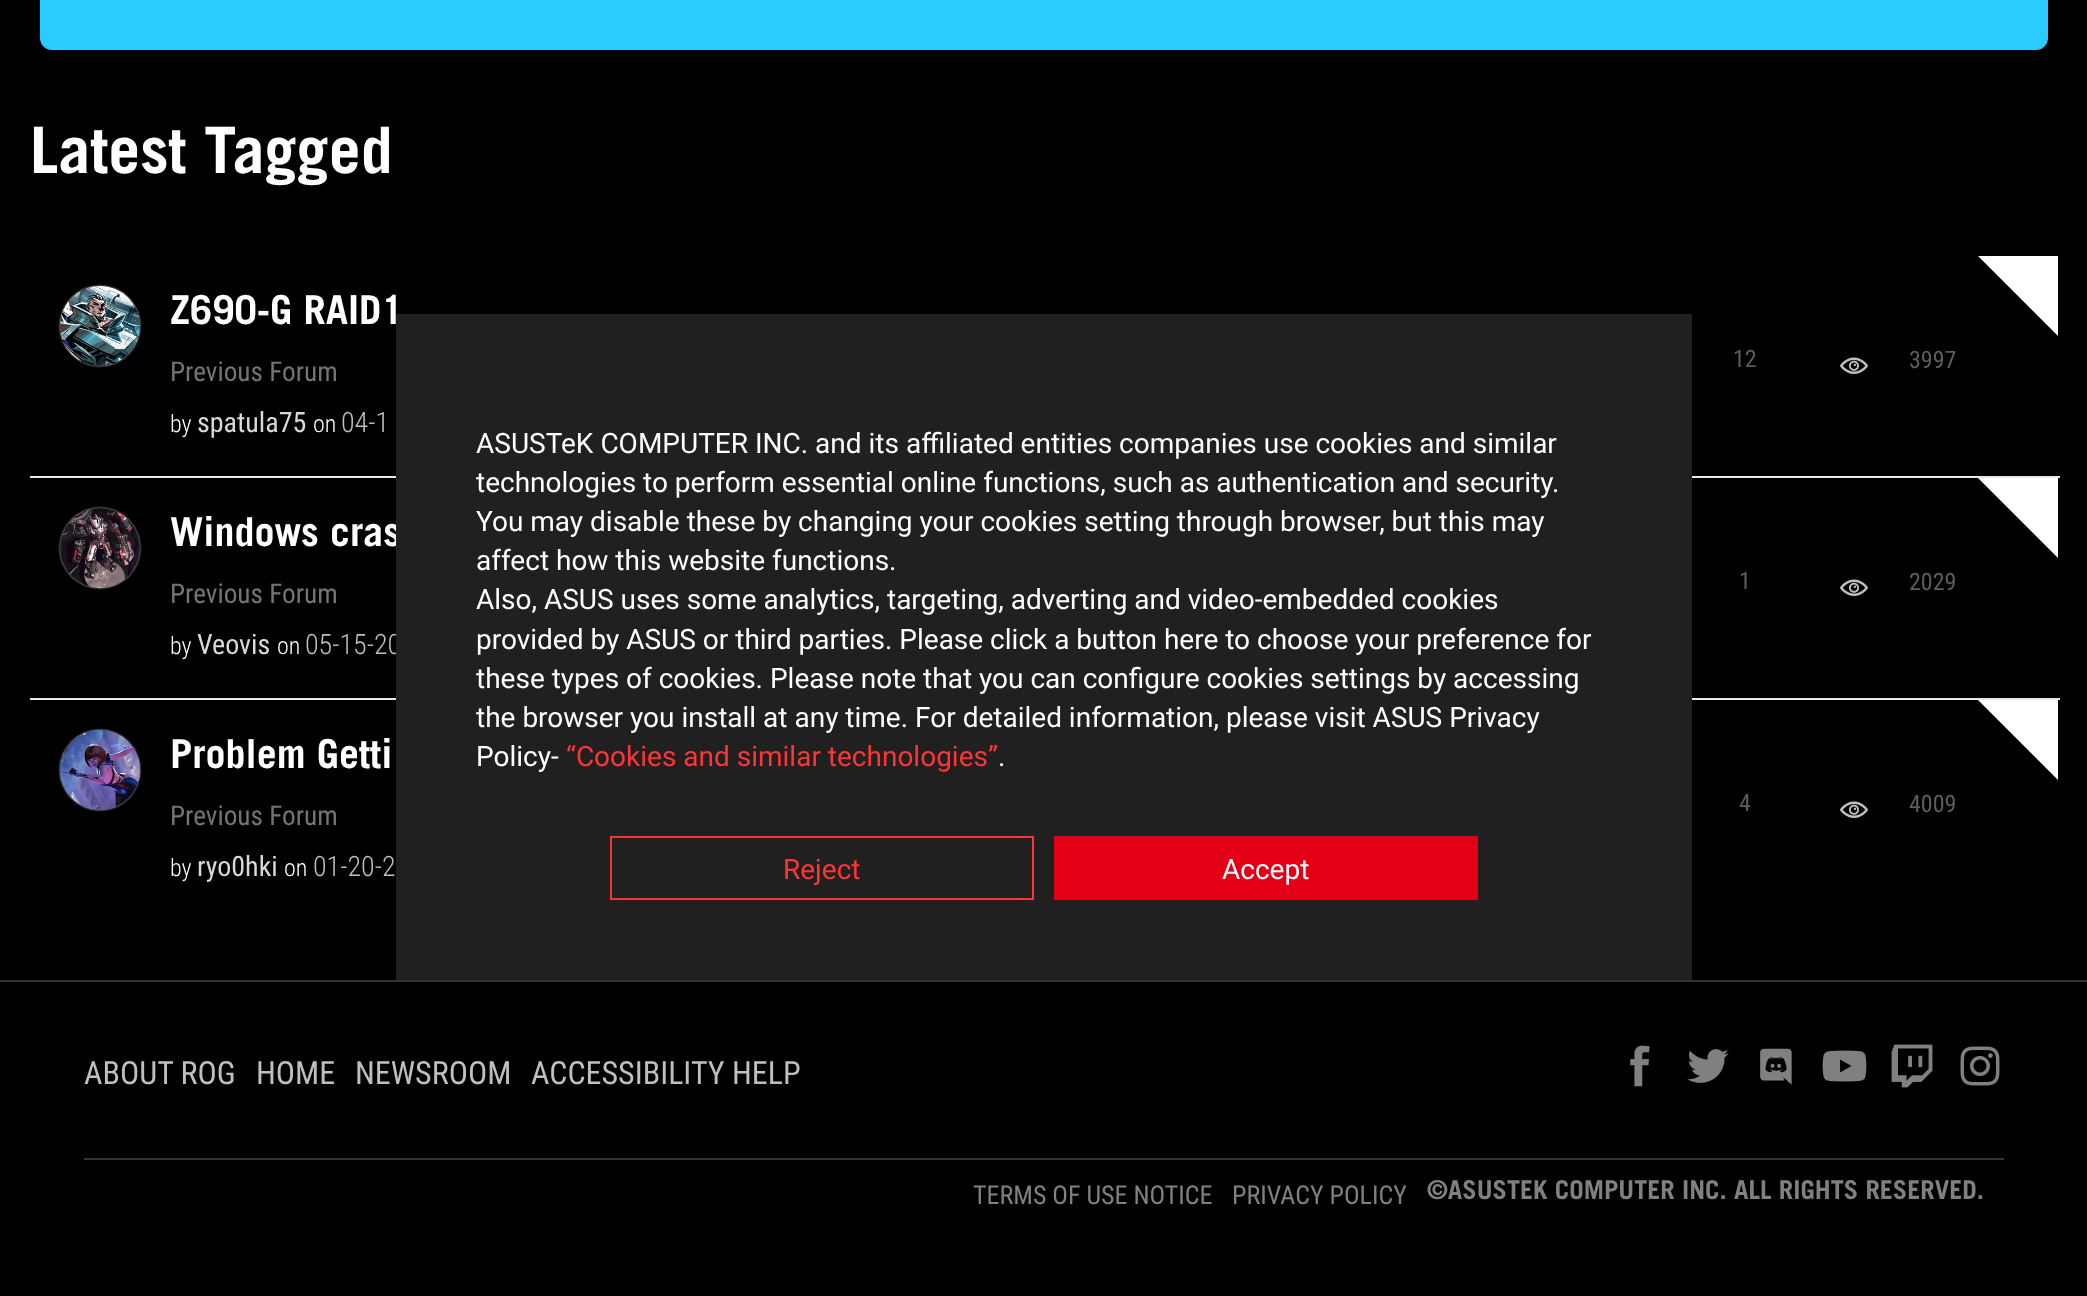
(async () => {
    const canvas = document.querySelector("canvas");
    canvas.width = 2087;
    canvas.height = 1296;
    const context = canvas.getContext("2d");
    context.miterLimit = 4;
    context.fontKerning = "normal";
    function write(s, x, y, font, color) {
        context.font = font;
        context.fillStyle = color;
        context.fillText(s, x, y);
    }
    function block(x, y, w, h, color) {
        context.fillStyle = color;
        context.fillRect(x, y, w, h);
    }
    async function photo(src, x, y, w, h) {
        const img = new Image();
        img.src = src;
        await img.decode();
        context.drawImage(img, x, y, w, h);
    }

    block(0, 0, 2087, 1296, "rgb(0, 0, 0)");
    context.fillStyle = "rgb(41, 204, 252)";
    context.beginPath();
    context.roundRect(41, -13, 2006, 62, 11);
    context.fill();
    context.strokeStyle = "rgb(41, 204, 252)";
    context.lineWidth = 2;
    context.stroke();
    write("Latest Tagged", 30, 173, "bold 64px Trade Gothic", "rgb(255, 255, 255)");
    context.fillStyle = "rgb(196, 196, 196)";
    context.filter = "blur(1px)";
    context.beginPath();
    context.roundRect(60, 286, 80, 80, 40);
    context.fill();
    context.filter = "none";
    await photo("media/1.png", 60, 286, 80, 80);
    write("Z690-G RAID1", 170, 324, "bold 40px Trade Gothic", "rgb(255, 255, 255)");
    write("Previous Forum", 170, 381, "27.25px Roboto Condensed", "rgb(116, 116, 116)");
    write("by", 170, 432, "300 24px Roboto Condensed", "rgb(255, 255, 255)");
    write("spatula75", 197, 432, "28px Roboto Condensed", "rgb(217, 217, 217)");
    write("on", 313, 432, "300 24px Roboto Condensed", "rgb(255, 255, 255)");
    write("04-1", 341, 432, "300 28px Roboto Condensed", "rgb(191, 191, 191)");
    write("12", 1733, 367, "24px Roboto Condensed", "rgb(93, 93, 93)");
    await photo("media/2.png", 1840, 357, 28, 17);
    write("3997", 1909, 368, "24px Roboto Condensed", "rgb(93, 93, 93)");
    context.fillStyle = "rgb(255, 255, 255)";
    context.beginPath();
    context.moveTo(1978, 256);
    context.lineTo(2058, 256);
    context.lineTo(2058, 336);
    context.closePath();
    context.fill();
    context.fillStyle = "rgb(196, 196, 196)";
    context.filter = "blur(1px)";
    context.beginPath();
    context.roundRect(60, 508, 80, 80, 40);
    context.fill();
    context.filter = "none";
    await photo("media/3.png", 60, 508, 80, 80);
    block(30, 476, 366, 2, "rgb(232, 232, 232)");
    write("Windows cras", 170, 546, "bold 40px Trade Gothic", "rgb(255, 255, 255)");
    write("Previous Forum", 170, 603, "27.25px Roboto Condensed", "rgb(116, 116, 116)");
    write("by", 170, 654, "300 24px Roboto Condensed", "rgb(255, 255, 255)");
    write("Veovis", 197, 654, "28px Roboto Condensed", "rgb(217, 217, 217)");
    write("on", 277, 654, "300 24px Roboto Condensed", "rgb(255, 255, 255)");
    write("05-15-20", 305, 654, "300 28px Roboto Condensed", "rgb(191, 191, 191)");
    block(1692, 476, 368, 2, "rgb(232, 232, 232)");
    context.fillStyle = "rgb(255, 255, 255)";
    context.beginPath();
    context.moveTo(1978, 478);
    context.lineTo(2058, 478);
    context.lineTo(2058, 558);
    context.closePath();
    context.fill();
    write("1", 1739, 589, "24px Roboto Condensed", "rgb(93, 93, 93)");
    await photo("media/2.png", 1840, 579, 28, 17);
    write("2029", 1909, 590, "24px Roboto Condensed", "rgb(93, 93, 93)");
    context.fillStyle = "rgb(196, 196, 196)";
    context.filter = "blur(1px)";
    context.beginPath();
    context.roundRect(60, 730, 80, 80, 40);
    context.fill();
    context.filter = "none";
    await photo("media/4.png", 60, 730, 80, 80);
    block(30, 698, 366, 2, "rgb(232, 232, 232)");
    write("Problem Getti", 170, 768, "bold 40px Trade Gothic", "rgb(255, 255, 255)");
    write("Previous Forum", 170, 825, "27.25px Roboto Condensed", "rgb(116, 116, 116)");
    write("by", 170, 876, "300 24px Roboto Condensed", "rgb(255, 255, 255)");
    write("ryo0hki", 197, 876, "28px Roboto Condensed", "rgb(217, 217, 217)");
    write("on", 284, 876, "300 24px Roboto Condensed", "rgb(255, 255, 255)");
    write("01-20-2", 313, 876, "300 28px Roboto Condensed", "rgb(191, 191, 191)");
    block(1692, 698, 368, 2, "rgb(232, 232, 232)");
    context.fillStyle = "rgb(255, 255, 255)";
    context.beginPath();
    context.moveTo(1978, 700);
    context.lineTo(2058, 700);
    context.lineTo(2058, 780);
    context.closePath();
    context.fill();
    write("4", 1739, 811, "24px Roboto Condensed", "rgb(93, 93, 93)");
    await photo("media/2.png", 1840, 801, 28, 17);
    write("4009", 1909, 812, "24px Roboto Condensed", "rgb(93, 93, 93)");
    block(0, 980, 2087, 2, "rgb(51, 51, 51)");
    write("ABOUT ROG", 84, 1084, "32px Roboto Condensed", "rgb(191, 191, 191)");
    write("HOME", 256, 1084, "32px Roboto Condensed", "rgb(191, 191, 191)");
    write("NEWSROOM", 355, 1084, "32px Roboto Condensed", "rgb(191, 191, 191)");
    write("ACCESSIBILITY HELP", 531, 1084, "32px Roboto Condensed", "rgb(191, 191, 191)");
    await photo("media/5.png", 1630, 1045, 20, 42);
    await photo("media/6.png", 1687, 1049, 42, 34);
    await photo("media/7.png", 1760, 1048, 32, 37);
    await photo("media/8.png", 1822, 1050, 45, 32);
    await photo("media/9.png", 1891, 1044, 42, 44);
    await photo("media/10.png", 1960, 1046, 40, 40);
    block(84, 1158, 1920, 2, "rgb(51, 51, 51)");
    write("TERMS OF USE NOTICE", 973, 1204, "26px Roboto Condensed", "rgb(128, 128, 128)");
    write("PRIVACY POLICY", 1232, 1204, "26px Roboto Condensed", "rgb(128, 128, 128)");
    write("©ASUSTEK COMPUTER INC. ALL RIGHTS RESERVED.", 1427, 1199, "bold 26px Trade Gothic", "rgb(128, 128, 128)");
    block(396, 314, 1296, 666, "rgb(32, 32, 32)");
    write("ASUSTeK COMPUTER INC. and its affiliated entities companies use cookies and similar", 476, 453, "28px Roboto", "rgb(255, 255, 255)");
    write("technologies to perform essential online functions, such as authentication and security.", 476, 492, "28px Roboto", "rgb(255, 255, 255)");
    write("You may disable these by changing your cookies setting through browser, but this may", 476, 531, "28px Roboto", "rgb(255, 255, 255)");
    write("affect how this website functions.", 476, 570, "28px Roboto", "rgb(255, 255, 255)");
    write("Also, ASUS uses some analytics, targeting, adverting and video-embedded cookies", 476, 609, "28px Roboto", "rgb(255, 255, 255)");
    write("provided by ASUS or third parties. Please click a button here to choose your preference for", 476, 649, "28px Roboto", "rgb(255, 255, 255)");
    write("these types of cookies. Please note that you can configure cookies settings by accessing", 476, 688, "28px Roboto", "rgb(255, 255, 255)");
    write("the browser you install at any time. For detailed information, please visit ASUS Privacy", 476, 727, "28px Roboto", "rgb(255, 255, 255)");
    write("Policy-", 476, 766, "28px Roboto", "rgb(255, 255, 255)");
    write("“Cookies and similar technologies”", 566, 766, "28px Roboto", "rgb(255, 53, 53)");
    write(".", 998, 766, "28px Roboto", "rgb(255, 255, 255)");
    context.strokeStyle = "rgb(255, 53, 53)";
    context.strokeRect(611, 837, 422, 62);
    write("Reject", 783, 879, "28px Roboto", "rgb(255, 53, 53)");
    block(1054, 836, 424, 64, "rgb(227, 0, 23)");
    write("Accept", 1222, 879, "28px Roboto", "rgb(255, 255, 255)");
})();
